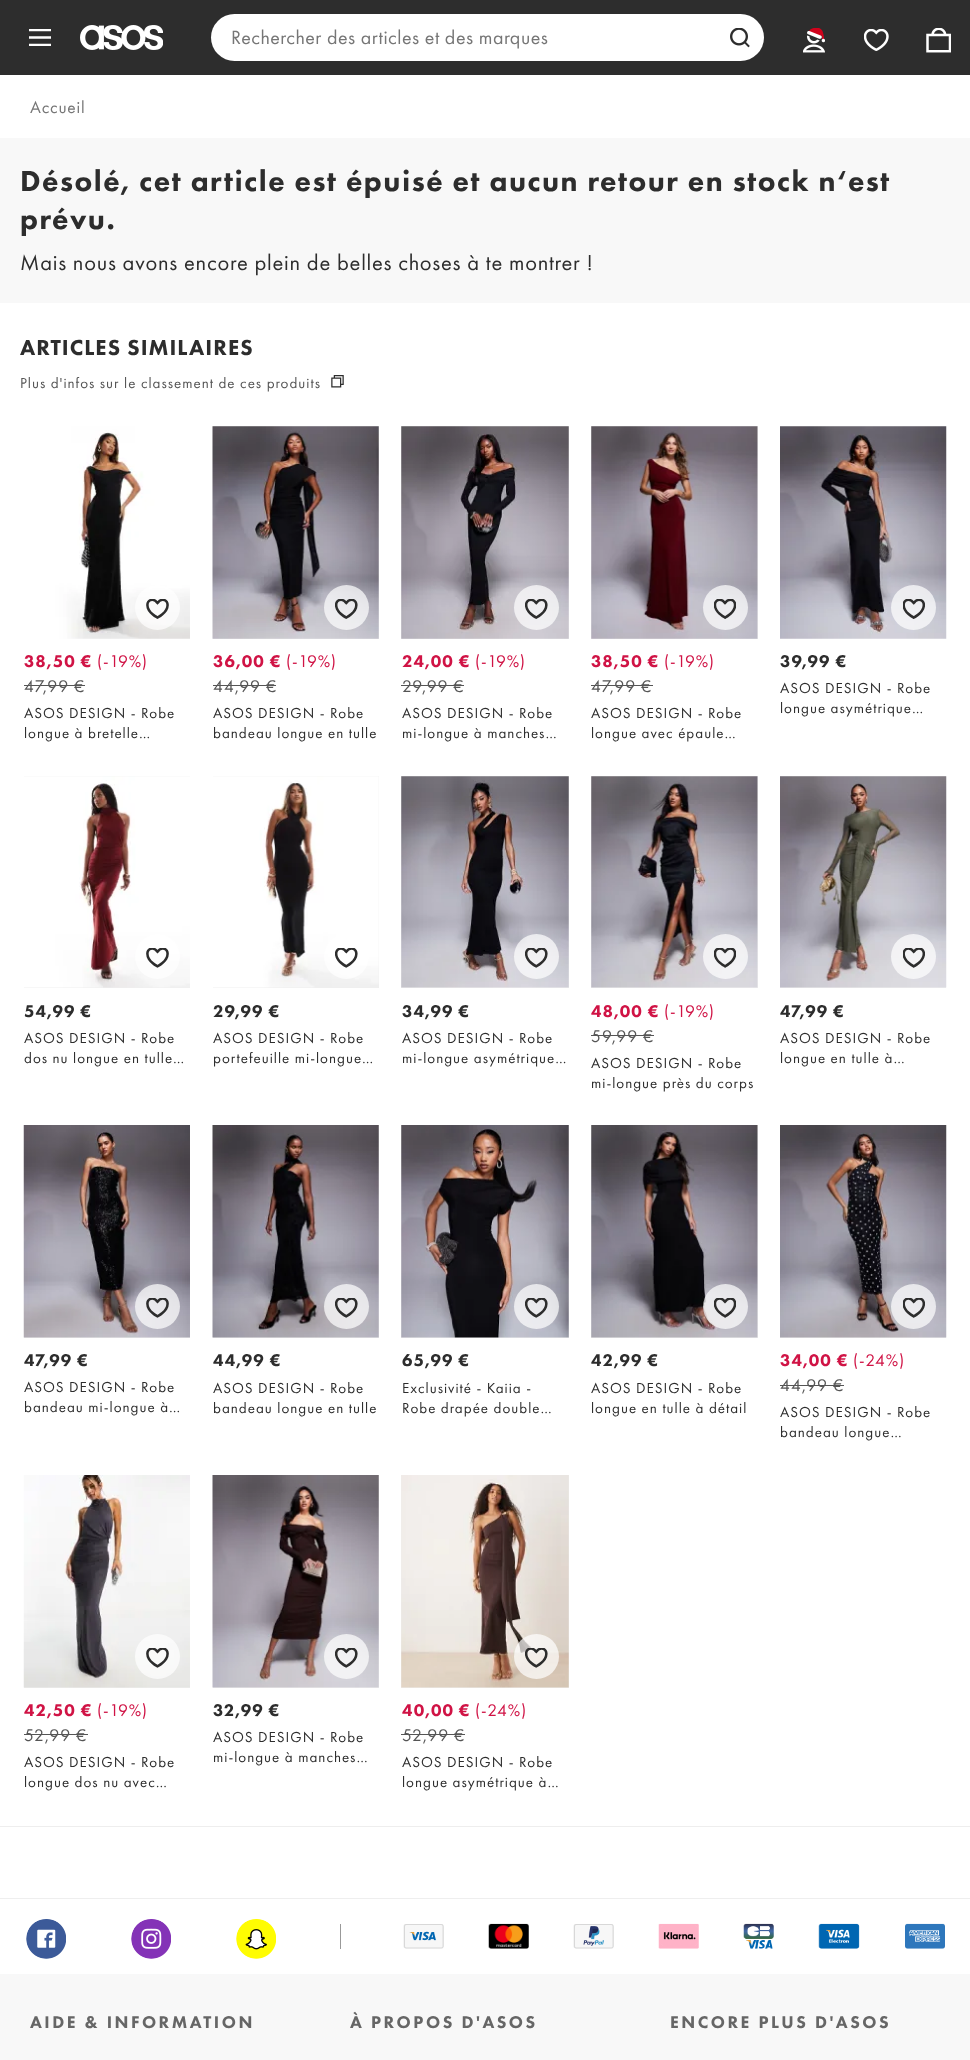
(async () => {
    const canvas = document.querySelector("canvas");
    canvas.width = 970;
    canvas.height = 2060;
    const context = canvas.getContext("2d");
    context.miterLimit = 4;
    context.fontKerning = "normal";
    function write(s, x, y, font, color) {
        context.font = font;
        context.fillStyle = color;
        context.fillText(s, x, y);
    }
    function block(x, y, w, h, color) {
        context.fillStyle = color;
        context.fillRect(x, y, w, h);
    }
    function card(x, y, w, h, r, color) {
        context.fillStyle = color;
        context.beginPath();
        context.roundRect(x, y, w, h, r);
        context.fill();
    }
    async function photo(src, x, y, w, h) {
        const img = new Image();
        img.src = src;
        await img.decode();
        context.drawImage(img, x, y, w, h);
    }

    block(0, 0, 970, 2060, "rgb(255, 255, 255)");
    block(0, 0, 970, 75, "rgb(45, 45, 45)");
    await photo("media/1.png", 29, 29, 22, 17);
    await photo("media/2.png", 80, 25, 83, 25);
    card(211, 14, 553, 47, 23.5, "rgb(255, 255, 255)");
    context.letterSpacing = "0.5px";
    write("Rechercher des articles et des marques", 231, 44, "20px Futura PT", "rgb(118, 118, 118)");
    await photo("media/3.png", 730, 28, 20, 20);
    await photo("media/4.png", 803, 28, 22, 25);
    await photo("media/5.png", 864, 29, 25, 22);
    await photo("media/6.png", 926, 28, 25, 25);
    context.letterSpacing = "0.75px";
    write("Accueil", 30, 113, "17.5px Futura PT", "rgb(118, 118, 118)");
    block(0, 1826, 970, 1, "rgb(238, 238, 238)");
    block(0, 138, 970, 165, "rgb(248, 248, 248)");
    context.letterSpacing = "1.5px";
    write("Désolé, cet article est épuisé et aucun retour en stock n‘est", 20, 191, "900 30px Futura PT", "rgb(45, 45, 45)");
    write("prévu.", 20, 229, "900 30px Futura PT", "rgb(45, 45, 45)");
    context.letterSpacing = "0.75px";
    write("Mais nous avons encore plein de belles choses à te montrer !", 20, 270, "22.5px Futura PT", "rgb(45, 45, 45)");
    context.letterSpacing = "1px";
    write("ARTICLES SIMILAIRES", 20, 355, "900 22.5px Futura PT", "rgb(45, 45, 45)");
    write("Plus d'infos sur le classement de ces produits", 20, 388, "15px Futura PT", "rgb(85, 85, 85)");
    await photo("media/7.png", 331, 375, 13, 13);
    await photo("media/9.png", 24, 426, 166, 213);
    context.fillStyle = "rgba(255, 255, 255, 0.7)";
    context.beginPath();
    context.arc(157.5, 607.5, 22.5, 0, Math.PI * 2);
    context.fill();
    await photo("media/8.png", 146, 599, 23, 20);
    write("38,50 €", 24, 667, "900 17.5px Futura PT", "rgb(208, 19, 69)");
    context.letterSpacing = "0.75px";
    write("(-19%)", 97, 667, "17.5px Futura PT", "rgb(208, 19, 69)");
    context.letterSpacing = "1px";
    write("47,99 €", 24, 692, "17.5px Futura PT", "rgb(85, 85, 85)");
    block(24, 685, 61, 1, "rgb(85, 85, 85)");
    write("ASOS DESIGN - Robe", 24, 718, "15px Futura PT", "rgb(45, 45, 45)");
    write("longue à bretelle…", 24, 738, "15px Futura PT", "rgb(45, 45, 45)");
    block(213, 426, 166, 213, "rgb(238, 238, 238)");
    await photo("media/11.png", 212, 426, 167, 213);
    context.fillStyle = "rgba(255, 255, 255, 0.7)";
    context.beginPath();
    context.arc(346.5, 607.5, 22.5, 0, Math.PI * 2);
    context.fill();
    await photo("media/10.png", 335, 599, 23, 20);
    write("36,00 €", 213, 667, "900 17.5px Futura PT", "rgb(208, 19, 69)");
    context.letterSpacing = "0.75px";
    write("(-19%)", 286, 667, "17.5px Futura PT", "rgb(208, 19, 69)");
    context.letterSpacing = "1px";
    write("44,99 €", 213, 692, "17.5px Futura PT", "rgb(85, 85, 85)");
    block(213, 685, 63, 1, "rgb(85, 85, 85)");
    write("ASOS DESIGN - Robe", 213, 718, "15px Futura PT", "rgb(45, 45, 45)");
    write("bandeau longue en tulle", 213, 738, "15px Futura PT", "rgb(45, 45, 45)");
    block(401, 426, 168, 213, "rgb(238, 238, 238)");
    await photo("media/13.png", 401, 426, 168, 213);
    context.fillStyle = "rgba(255, 255, 255, 0.7)";
    context.beginPath();
    context.arc(536.5, 607.5, 22.5, 0, Math.PI * 2);
    context.fill();
    await photo("media/12.png", 525, 599, 23, 20);
    write("24,00 €", 402, 667, "900 17.5px Futura PT", "rgb(208, 19, 69)");
    context.letterSpacing = "0.75px";
    write("(-19%)", 475, 667, "17.5px Futura PT", "rgb(208, 19, 69)");
    context.letterSpacing = "1px";
    write("29,99 €", 402, 692, "17.5px Futura PT", "rgb(85, 85, 85)");
    block(401, 685, 63, 1, "rgb(85, 85, 85)");
    write("ASOS DESIGN - Robe", 402, 718, "15px Futura PT", "rgb(45, 45, 45)");
    write("mi-longue à manches…", 402, 738, "15px Futura PT", "rgb(45, 45, 45)");
    block(591, 426, 167, 213, "rgb(238, 238, 238)");
    await photo("media/15.png", 591, 426, 167, 213);
    context.fillStyle = "rgba(255, 255, 255, 0.7)";
    context.beginPath();
    context.arc(725.5, 607.5, 22.5, 0, Math.PI * 2);
    context.fill();
    await photo("media/14.png", 714, 599, 22, 20);
    write("38,50 €", 591, 667, "900 17.5px Futura PT", "rgb(208, 19, 69)");
    context.letterSpacing = "0.75px";
    write("(-19%)", 664, 667, "17.5px Futura PT", "rgb(208, 19, 69)");
    context.letterSpacing = "1px";
    write("47,99 €", 591, 692, "17.5px Futura PT", "rgb(85, 85, 85)");
    block(591, 685, 62, 1, "rgb(85, 85, 85)");
    write("ASOS DESIGN - Robe", 591, 718, "15px Futura PT", "rgb(45, 45, 45)");
    write("longue avec épaule…", 591, 738, "15px Futura PT", "rgb(45, 45, 45)");
    await photo("media/17.png", 780, 426, 167, 213);
    context.fillStyle = "rgba(255, 255, 255, 0.7)";
    context.beginPath();
    context.arc(913.5, 607.5, 22.5, 0, Math.PI * 2);
    context.fill();
    await photo("media/16.png", 903, 599, 22, 20);
    write("39,99 €", 780, 667, "900 17.5px Futura PT", "rgb(45, 45, 45)");
    write("ASOS DESIGN - Robe", 780, 693, "15px Futura PT", "rgb(45, 45, 45)");
    write("longue asymétrique…", 780, 713, "15px Futura PT", "rgb(45, 45, 45)");
    block(24, 776, 166, 212, "rgb(238, 238, 238)");
    await photo("media/19.png", 24, 776, 166, 212);
    context.fillStyle = "rgba(255, 255, 255, 0.7)";
    context.beginPath();
    context.arc(157.5, 956.5, 22.5, 0, Math.PI * 2);
    context.fill();
    await photo("media/18.png", 146, 948, 23, 20);
    write("54,99 €", 24, 1017, "900 17.5px Futura PT", "rgb(45, 45, 45)");
    write("ASOS DESIGN - Robe", 24, 1043, "15px Futura PT", "rgb(45, 45, 45)");
    write("dos nu longue en tulle…", 24, 1063, "15px Futura PT", "rgb(45, 45, 45)");
    block(213, 776, 166, 212, "rgb(238, 238, 238)");
    await photo("media/21.png", 213, 776, 166, 212);
    context.fillStyle = "rgba(255, 255, 255, 0.7)";
    context.beginPath();
    context.arc(346.5, 956.5, 22.5, 0, Math.PI * 2);
    context.fill();
    await photo("media/20.png", 335, 948, 23, 20);
    write("29,99 €", 213, 1017, "900 17.5px Futura PT", "rgb(45, 45, 45)");
    write("ASOS DESIGN - Robe", 213, 1043, "15px Futura PT", "rgb(45, 45, 45)");
    write("portefeuille mi-longue…", 213, 1063, "15px Futura PT", "rgb(45, 45, 45)");
    block(401, 776, 168, 212, "rgb(238, 238, 238)");
    await photo("media/23.png", 401, 776, 168, 212);
    context.fillStyle = "rgba(255, 255, 255, 0.7)";
    context.beginPath();
    context.arc(536.5, 956.5, 22.5, 0, Math.PI * 2);
    context.fill();
    await photo("media/22.png", 525, 948, 23, 20);
    write("34,99 €", 402, 1017, "900 17.5px Futura PT", "rgb(45, 45, 45)");
    write("ASOS DESIGN - Robe", 402, 1043, "15px Futura PT", "rgb(45, 45, 45)");
    write("mi-longue asymétrique…", 402, 1063, "15px Futura PT", "rgb(45, 45, 45)");
    block(591, 776, 167, 212, "rgb(238, 238, 238)");
    await photo("media/25.png", 591, 776, 167, 212);
    context.fillStyle = "rgba(255, 255, 255, 0.7)";
    context.beginPath();
    context.arc(725.5, 956.5, 22.5, 0, Math.PI * 2);
    context.fill();
    await photo("media/24.png", 714, 948, 22, 20);
    write("48,00 €", 591, 1017, "900 17.5px Futura PT", "rgb(208, 19, 69)");
    context.letterSpacing = "0.75px";
    write("(-19%)", 664, 1017, "17.5px Futura PT", "rgb(208, 19, 69)");
    context.letterSpacing = "1px";
    write("59,99 €", 591, 1042, "17.5px Futura PT", "rgb(85, 85, 85)");
    block(591, 1035, 63, 1, "rgb(85, 85, 85)");
    write("ASOS DESIGN - Robe", 591, 1068, "15px Futura PT", "rgb(45, 45, 45)");
    write("mi-longue près du corps", 591, 1088, "15px Futura PT", "rgb(45, 45, 45)");
    block(780, 776, 166, 212, "rgb(238, 238, 238)");
    await photo("media/27.png", 780, 776, 167, 212);
    context.fillStyle = "rgba(255, 255, 255, 0.7)";
    context.beginPath();
    context.arc(913.5, 956.5, 22.5, 0, Math.PI * 2);
    context.fill();
    await photo("media/26.png", 903, 948, 22, 20);
    write("47,99 €", 780, 1017, "900 17.5px Futura PT", "rgb(45, 45, 45)");
    write("ASOS DESIGN - Robe", 780, 1043, "15px Futura PT", "rgb(45, 45, 45)");
    write("longue en tulle à…", 780, 1063, "15px Futura PT", "rgb(45, 45, 45)");
    block(24, 1337, 166, 1, "rgb(238, 238, 238)");
    await photo("media/29.png", 23, 1125, 167, 213);
    context.fillStyle = "rgba(255, 255, 255, 0.7)";
    context.beginPath();
    context.arc(157.5, 1306.5, 22.5, 0, Math.PI * 2);
    context.fill();
    await photo("media/28.png", 146, 1298, 23, 20);
    write("47,99 €", 24, 1366, "900 17.5px Futura PT", "rgb(45, 45, 45)");
    write("ASOS DESIGN - Robe", 24, 1392, "15px Futura PT", "rgb(45, 45, 45)");
    write("bandeau mi-longue à…", 24, 1412, "15px Futura PT", "rgb(45, 45, 45)");
    block(213, 1125, 166, 213, "rgb(238, 238, 238)");
    await photo("media/31.png", 212, 1125, 167, 213);
    context.fillStyle = "rgba(255, 255, 255, 0.7)";
    context.beginPath();
    context.arc(346.5, 1306.5, 22.5, 0, Math.PI * 2);
    context.fill();
    await photo("media/30.png", 335, 1298, 23, 20);
    write("44,99 €", 213, 1366, "900 17.5px Futura PT", "rgb(45, 45, 45)");
    write("ASOS DESIGN - Robe", 213, 1393, "15px Futura PT", "rgb(45, 45, 45)");
    write("bandeau longue en tulle", 213, 1413, "15px Futura PT", "rgb(45, 45, 45)");
    block(401, 1125, 168, 213, "rgb(238, 238, 238)");
    await photo("media/33.png", 401, 1125, 168, 213);
    context.fillStyle = "rgba(255, 255, 255, 0.7)";
    context.beginPath();
    context.arc(536.5, 1306.5, 22.5, 0, Math.PI * 2);
    context.fill();
    await photo("media/32.png", 525, 1298, 23, 20);
    write("65,99 €", 402, 1366, "900 17.5px Futura PT", "rgb(45, 45, 45)");
    write("Exclusivité - Kaiia -", 402, 1393, "15px Futura PT", "rgb(45, 45, 45)");
    write("Robe drapée double…", 402, 1413, "15px Futura PT", "rgb(45, 45, 45)");
    block(591, 1125, 167, 213, "rgb(238, 238, 238)");
    await photo("media/35.png", 591, 1125, 167, 213);
    context.fillStyle = "rgba(255, 255, 255, 0.7)";
    context.beginPath();
    context.arc(725.5, 1306.5, 22.5, 0, Math.PI * 2);
    context.fill();
    await photo("media/34.png", 714, 1298, 22, 20);
    write("42,99 €", 591, 1366, "900 17.5px Futura PT", "rgb(45, 45, 45)");
    write("ASOS DESIGN - Robe", 591, 1393, "15px Futura PT", "rgb(45, 45, 45)");
    write("longue en tulle à détail", 591, 1413, "15px Futura PT", "rgb(45, 45, 45)");
    block(780, 1337, 166, 1, "rgb(238, 238, 238)");
    await photo("media/37.png", 780, 1125, 167, 213);
    context.fillStyle = "rgba(255, 255, 255, 0.7)";
    context.beginPath();
    context.arc(913.5, 1306.5, 22.5, 0, Math.PI * 2);
    context.fill();
    await photo("media/36.png", 903, 1298, 22, 20);
    write("34,00 €", 780, 1366, "900 17.5px Futura PT", "rgb(208, 19, 69)");
    context.letterSpacing = "0.75px";
    write("(-24%)", 853, 1366, "17.5px Futura PT", "rgb(208, 19, 69)");
    context.letterSpacing = "1px";
    write("44,99 €", 780, 1391, "17.5px Futura PT", "rgb(85, 85, 85)");
    block(780, 1385, 64, 1, "rgb(85, 85, 85)");
    write("ASOS DESIGN - Robe", 780, 1417, "15px Futura PT", "rgb(45, 45, 45)");
    write("bandeau longue…", 780, 1437, "15px Futura PT", "rgb(45, 45, 45)");
    block(24, 1687, 166, 1, "rgb(238, 238, 238)");
    await photo("media/39.png", 23, 1475, 167, 213);
    context.fillStyle = "rgba(255, 255, 255, 0.7)";
    context.beginPath();
    context.arc(157.5, 1656.5, 22.5, 0, Math.PI * 2);
    context.fill();
    await photo("media/38.png", 146, 1648, 23, 20);
    write("42,50 €", 24, 1716, "900 17.5px Futura PT", "rgb(208, 19, 69)");
    context.letterSpacing = "0.75px";
    write("(-19%)", 97, 1716, "17.5px Futura PT", "rgb(208, 19, 69)");
    context.letterSpacing = "1px";
    write("52,99 €", 24, 1741, "17.5px Futura PT", "rgb(85, 85, 85)");
    block(24, 1734, 64, 1, "rgb(85, 85, 85)");
    write("ASOS DESIGN - Robe", 24, 1767, "15px Futura PT", "rgb(45, 45, 45)");
    write("longue dos nu avec…", 24, 1787, "15px Futura PT", "rgb(45, 45, 45)");
    block(213, 1475, 166, 213, "rgb(238, 238, 238)");
    await photo("media/41.png", 212, 1475, 167, 213);
    context.fillStyle = "rgba(255, 255, 255, 0.7)";
    context.beginPath();
    context.arc(346.5, 1656.5, 22.5, 0, Math.PI * 2);
    context.fill();
    await photo("media/40.png", 335, 1648, 23, 20);
    write("32,99 €", 213, 1716, "900 17.5px Futura PT", "rgb(45, 45, 45)");
    write("ASOS DESIGN - Robe", 213, 1742, "15px Futura PT", "rgb(45, 45, 45)");
    write("mi-longue à manches…", 213, 1762, "15px Futura PT", "rgb(45, 45, 45)");
    block(401, 1475, 168, 213, "rgb(238, 238, 238)");
    await photo("media/43.png", 401, 1475, 168, 213);
    context.fillStyle = "rgba(255, 255, 255, 0.7)";
    context.beginPath();
    context.arc(536.5, 1656.5, 22.5, 0, Math.PI * 2);
    context.fill();
    await photo("media/42.png", 525, 1648, 23, 20);
    write("40,00 €", 402, 1716, "900 17.5px Futura PT", "rgb(208, 19, 69)");
    context.letterSpacing = "0.75px";
    write("(-24%)", 475, 1716, "17.5px Futura PT", "rgb(208, 19, 69)");
    context.letterSpacing = "1px";
    write("52,99 €", 402, 1741, "17.5px Futura PT", "rgb(85, 85, 85)");
    block(401, 1734, 64, 1, "rgb(85, 85, 85)");
    write("ASOS DESIGN - Robe", 402, 1767, "15px Futura PT", "rgb(45, 45, 45)");
    write("longue asymétrique à…", 402, 1787, "15px Futura PT", "rgb(45, 45, 45)");
    block(0, 1898, 970, 1, "rgb(238, 238, 238)");
    await photo("media/44.png", 26, 1919, 40, 40);
    context.beginPath();
    context.roundRect(25.5, 1918.5, 42, 41, 20.5);
    context.strokeStyle = "rgb(255, 255, 255)";
    context.stroke();
    await photo("media/45.png", 131, 1919, 40, 40);
    context.beginPath();
    context.roundRect(130.5, 1918.5, 42, 41, 20.5);
    context.stroke();
    await photo("media/46.png", 236, 1919, 40, 40);
    context.beginPath();
    context.roundRect(235.5, 1918.5, 42, 41, 20.5);
    context.stroke();
    block(340, 1924, 1, 25, "rgb(153, 153, 153)");
    await photo("media/47.png", 403, 1924, 41, 25);
    await photo("media/48.png", 488, 1923, 41, 26);
    await photo("media/49.png", 573, 1924, 41, 25);
    await photo("media/50.png", 658, 1923, 41, 26);
    await photo("media/51.png", 743, 1923, 31, 26);
    await photo("media/52.png", 818, 1923, 42, 26);
    await photo("media/53.png", 905, 1923, 40, 26);
    block(0, 1974, 970, 86, "rgb(248, 248, 248)");
    context.letterSpacing = "2.5px";
    write("AIDE & INFORMATION", 30, 2028, "900 17.5px Futura PT", "rgb(102, 102, 102)");
    write("À PROPOS D'ASOS", 350, 2028, "900 17.5px Futura PT", "rgb(102, 102, 102)");
    write("ENCORE PLUS D'ASOS", 670, 2028, "900 17.5px Futura PT", "rgb(102, 102, 102)");
})();
